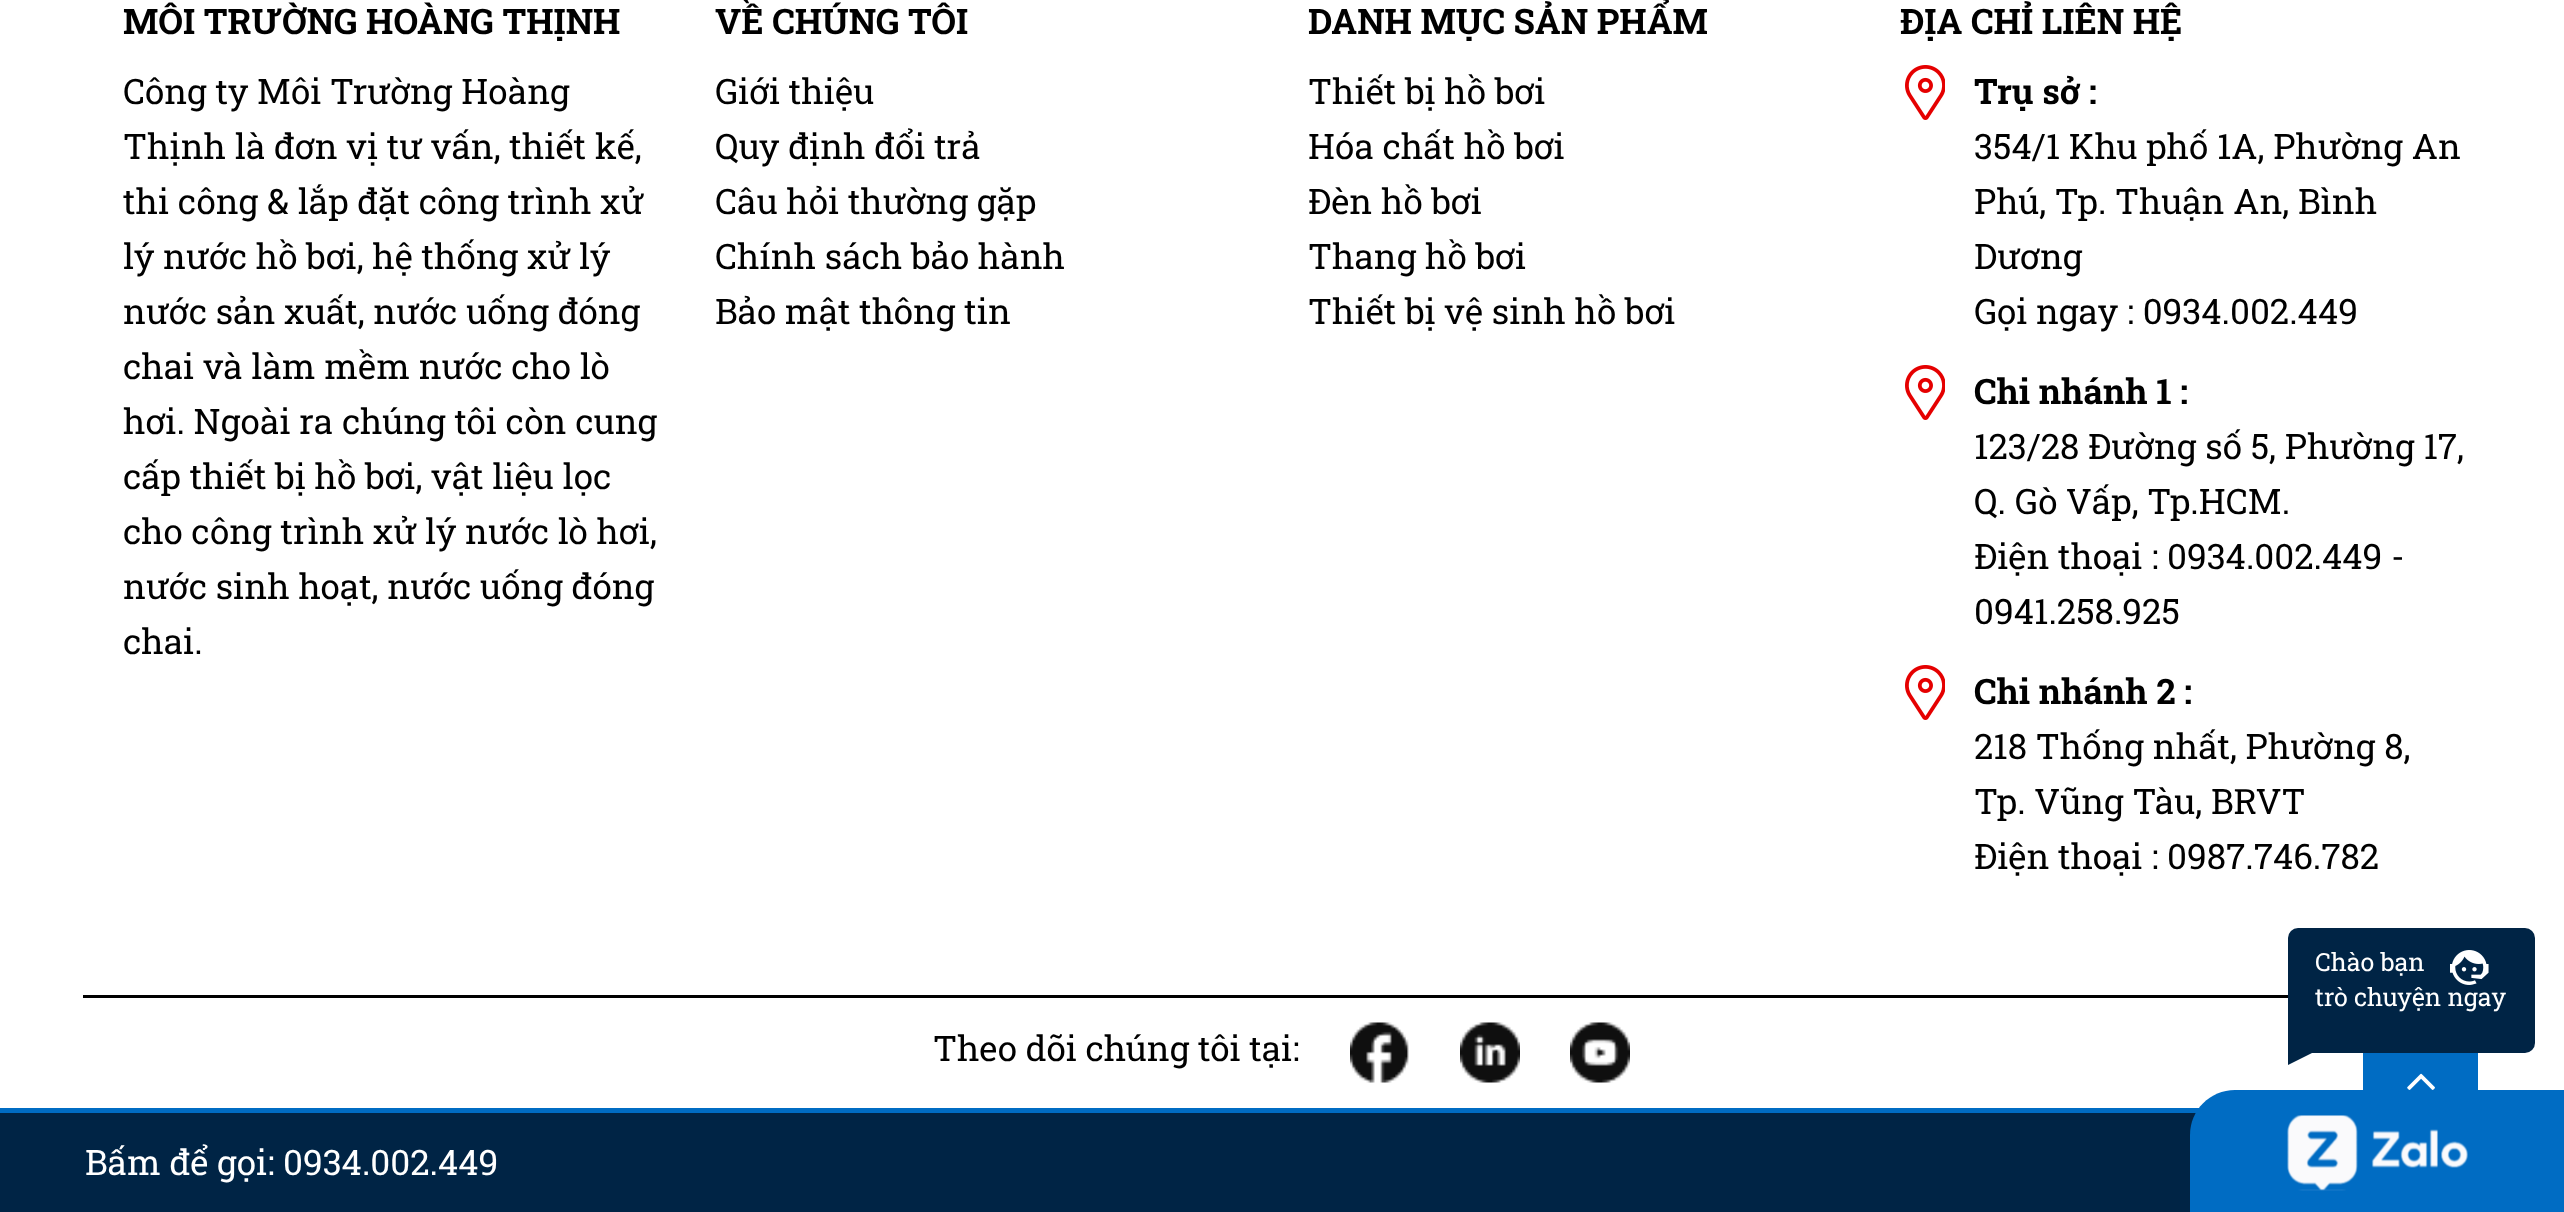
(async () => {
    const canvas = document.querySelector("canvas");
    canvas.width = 2564;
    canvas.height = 1212;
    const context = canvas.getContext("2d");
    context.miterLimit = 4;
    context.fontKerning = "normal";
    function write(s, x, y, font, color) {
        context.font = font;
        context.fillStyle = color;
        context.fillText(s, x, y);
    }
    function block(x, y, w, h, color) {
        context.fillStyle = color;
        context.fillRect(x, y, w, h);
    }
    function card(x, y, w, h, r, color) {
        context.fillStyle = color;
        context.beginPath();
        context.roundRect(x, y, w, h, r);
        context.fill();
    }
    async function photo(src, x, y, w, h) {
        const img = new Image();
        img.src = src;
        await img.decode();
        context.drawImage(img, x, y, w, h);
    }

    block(0, 0, 2564, 1212, "rgb(255, 255, 255)");
    write("MÔI TRƯỜNG HOÀNG THỊNH", 123, 34, "bold 35px Roboto Slab", "rgb(0, 0, 0)");
    write("Công ty Môi Trường Hoàng", 123, 104, "35px Roboto Slab", "rgb(0, 0, 0)");
    write("Thịnh là đơn vị tư vấn, thiết kế,", 123, 159, "35px Roboto Slab", "rgb(0, 0, 0)");
    write("thi công & lắp đặt công trình xử", 123, 214, "35px Roboto Slab", "rgb(0, 0, 0)");
    write("lý nước hồ bơi, hệ thống xử lý", 123, 269, "35px Roboto Slab", "rgb(0, 0, 0)");
    write("nước sản xuất, nước uống đóng", 123, 324, "35px Roboto Slab", "rgb(0, 0, 0)");
    write("chai và làm mềm nước cho lò", 123, 379, "35px Roboto Slab", "rgb(0, 0, 0)");
    write("hơi. Ngoài ra chúng tôi còn cung", 123, 434, "35px Roboto Slab", "rgb(0, 0, 0)");
    write("cấp thiết bị hồ bơi, vật liệu lọc", 123, 489, "35px Roboto Slab", "rgb(0, 0, 0)");
    write("cho công trình xử lý nước lò hơi,", 123, 544, "35px Roboto Slab", "rgb(0, 0, 0)");
    write("nước sinh hoạt, nước uống đóng", 123, 599, "35px Roboto Slab", "rgb(0, 0, 0)");
    write("chai.", 123, 654, "35px Roboto Slab", "rgb(0, 0, 0)");
    write("VỀ CHÚNG TÔI", 715, 34, "bold 35px Roboto Slab", "rgb(0, 0, 0)");
    write("Giới thiệu", 715, 104, "35px Roboto Slab", "rgb(0, 0, 0)");
    write("Quy định đổi trả", 715, 159, "35px Roboto Slab", "rgb(0, 0, 0)");
    write("Câu hỏi thường gặp", 715, 214, "35px Roboto Slab", "rgb(0, 0, 0)");
    write("Chính sách bảo hành", 715, 269, "35px Roboto Slab", "rgb(0, 0, 0)");
    write("Bảo mật thông tin", 715, 324, "35px Roboto Slab", "rgb(0, 0, 0)");
    write("DANH MỤC SẢN PHẨM", 1308, 34, "bold 35px Roboto Slab", "rgb(0, 0, 0)");
    write("Thiết bị hồ bơi", 1308, 104, "35px Roboto Slab", "rgb(0, 0, 0)");
    write("Hóa chất hồ bơi", 1308, 159, "35px Roboto Slab", "rgb(0, 0, 0)");
    write("Đèn hồ bơi", 1308, 214, "35px Roboto Slab", "rgb(0, 0, 0)");
    write("Thang hồ bơi", 1308, 269, "35px Roboto Slab", "rgb(0, 0, 0)");
    write("Thiết bị vệ sinh hồ bơi", 1308, 324, "35px Roboto Slab", "rgb(0, 0, 0)");
    write("ĐỊA CHỈ LIÊN HỆ", 1900, 34, "bold 35px Roboto Slab", "rgb(0, 0, 0)");
    await photo("media/1.png", 1905, 65, 40, 55);
    write("Trụ sở :", 1974, 104, "bold 35px Roboto Slab", "rgb(0, 0, 0)");
    write("354/1 Khu phố 1A, Phường An", 1974, 159, "35px Roboto Slab", "rgb(0, 0, 0)");
    write("Phú, Tp. Thuận An, Bình", 1974, 214, "35px Roboto Slab", "rgb(0, 0, 0)");
    write("Dương", 1974, 269, "35px Roboto Slab", "rgb(0, 0, 0)");
    write("Gọi ngay : 0934.002.449", 1974, 324, "35px Roboto Slab", "rgb(0, 0, 0)");
    await photo("media/1.png", 1905, 365, 40, 55);
    write("Chi nhánh 1 :", 1974, 404, "bold 35px Roboto Slab", "rgb(0, 0, 0)");
    write("123/28 Đường số 5, Phường 17,", 1974, 459, "35px Roboto Slab", "rgb(0, 0, 0)");
    write("Q. Gò Vấp, Tp.HCM.", 1974, 514, "35px Roboto Slab", "rgb(0, 0, 0)");
    write("Điện thoại : 0934.002.449 -", 1974, 569, "35px Roboto Slab", "rgb(0, 0, 0)");
    write("0941.258.925", 1974, 624, "35px Roboto Slab", "rgb(0, 0, 0)");
    await photo("media/1.png", 1905, 665, 40, 55);
    write("Chi nhánh 2 :", 1974, 704, "bold 35px Roboto Slab", "rgb(0, 0, 0)");
    write("218 Thống nhất, Phường 8,", 1974, 759, "35px Roboto Slab", "rgb(0, 0, 0)");
    write("Tp. Vũng Tàu, BRVT", 1974, 814, "35px Roboto Slab", "rgb(0, 0, 0)");
    write("Điện thoại : 0987.746.782", 1974, 869, "35px Roboto Slab", "rgb(0, 0, 0)");
    block(0, 1113, 2196, 99, "rgb(0, 36, 69)");
    block(0, 1108, 2199, 5, "rgb(0, 108, 195)");
    context.beginPath();
    context.moveTo(2235, 1090);
    context.lineTo(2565, 1090);
    context.lineTo(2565, 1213);
    context.lineTo(2190, 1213);
    context.lineTo(2190, 1135);
    context.bezierCurveTo(2190, 1110, 2210, 1090, 2235, 1090);
    context.closePath();
    context.fill();
    card(2288, 928, 247, 125, 10, "rgb(0, 36, 69)");
    write("Chào bạn", 2315, 971, "25px Roboto Slab", "rgb(255, 255, 255)");
    await photo("media/2.png", 2450, 950, 39, 35);
    write("trò chuyện ngay", 2315, 1006, "25px Roboto Slab", "rgb(255, 255, 255)");
    context.fillStyle = "rgb(0, 36, 69)";
    context.beginPath();
    context.moveTo(2288, 1028);
    context.lineTo(2362, 1028);
    context.lineTo(2288, 1065);
    context.closePath();
    context.fill();
    await photo("media/3.png", 2287, 1115, 181, 76);
    write("Bấm để gọi: 0934.002.449", 85, 1175, "35px Roboto Slab", "rgb(255, 255, 255)");
    block(83, 995, 2205, 3, "rgb(0, 0, 0)");
    write("Theo dõi chúng tôi tại:", 933, 1061, "35px Roboto Slab", "rgb(0, 0, 0)");
    await photo("media/4.png", 1350, 1022, 59, 61);
    await photo("media/5.png", 1460, 1022, 60, 61);
    await photo("media/6.png", 1570, 1022, 60, 61);
    block(2363, 1053, 115, 37, "rgb(0, 108, 195)");
    await photo("media/7.png", 2407, 1073, 28, 17);
})();
